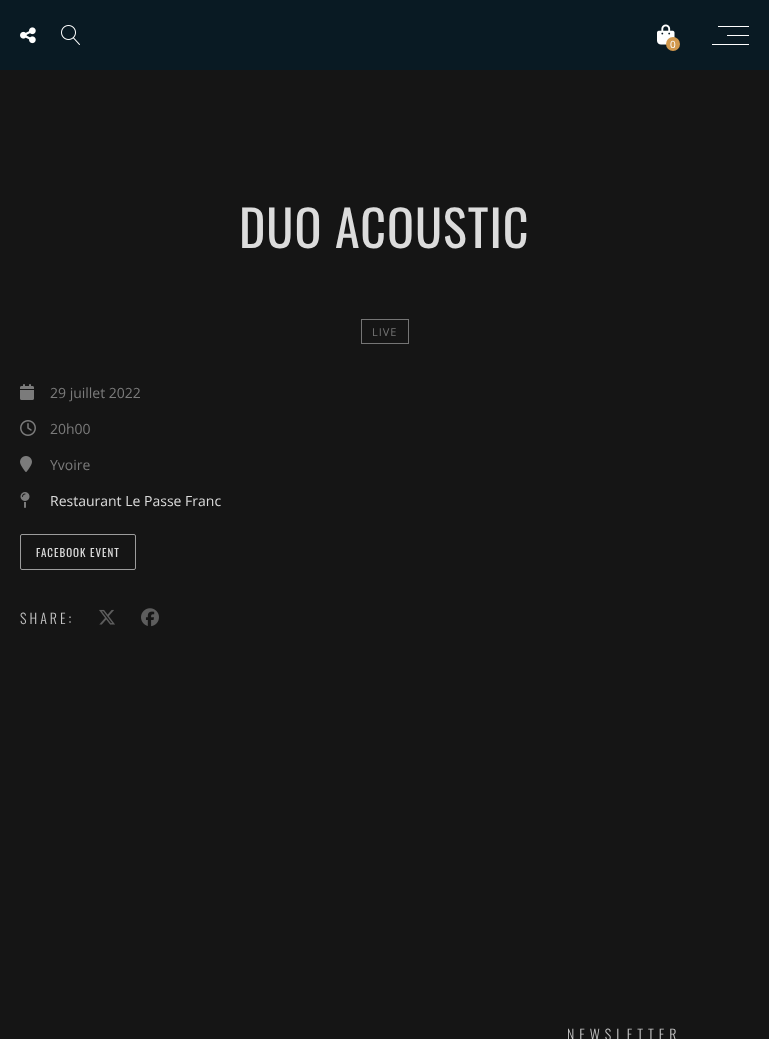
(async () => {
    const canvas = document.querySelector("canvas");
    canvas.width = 769;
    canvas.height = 1039;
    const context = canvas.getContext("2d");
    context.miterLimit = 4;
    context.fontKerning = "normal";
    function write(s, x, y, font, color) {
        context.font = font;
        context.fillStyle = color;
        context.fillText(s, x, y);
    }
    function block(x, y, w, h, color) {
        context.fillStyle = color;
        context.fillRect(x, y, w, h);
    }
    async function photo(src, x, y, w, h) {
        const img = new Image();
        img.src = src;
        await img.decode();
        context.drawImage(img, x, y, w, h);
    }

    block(0, 0, 769, 1039, "rgb(21, 21, 21)");
    block(0, 0, 769, 70, "rgb(9, 26, 35)");
    await photo("media/1.png", 20, 27, 16, 17);
    await photo("media/2.png", 61, 25, 19, 20);
    await photo("media/3.png", 657, 24, 18, 21);
    context.fillStyle = "rgb(209, 152, 77)";
    context.beginPath();
    context.arc(673, 44, 7, 0, Math.PI * 2);
    context.fill();
    write("0", 670, 48, "10px Open Sans", "rgb(255, 255, 255)");
    block(718, 26, 31, 1, "rgb(255, 255, 255)");
    block(727, 35, 22, 1, "rgb(255, 255, 255)");
    block(712, 44, 37, 1, "rgb(255, 255, 255)");
    context.letterSpacing = "1px";
    write("DUO ACOUSTIC", 239, 248, "50px Oswald", "rgb(220, 220, 220)");
    context.strokeStyle = "rgb(117, 117, 117)";
    context.strokeRect(361.5, 319.5, 47, 24);
    write("LIVE", 372, 336, "11px Open Sans", "rgb(117, 117, 117)");
    await photo("media/4.png", 20, 384, 14, 16);
    context.letterSpacing = "0px";
    write("29 juillet 2022", 50, 398, "14px Open Sans", "rgb(123, 123, 123)");
    await photo("media/5.png", 20, 420, 16, 16);
    write("20h00", 50, 434, "14px Open Sans", "rgb(123, 123, 123)");
    await photo("media/6.png", 20, 456, 12, 16);
    write("Yvoire", 50, 470, "14px Open Sans", "rgb(123, 123, 123)");
    await photo("media/7.png", 20, 492, 10, 16);
    write("Restaurant Le Passe Franc", 50, 506, "14px Open Sans", "rgb(220, 220, 220)");
    context.beginPath();
    context.roundRect(20.5, 534.5, 115, 35, 1.5);
    context.strokeStyle = "rgb(156, 156, 156)";
    context.stroke();
    context.letterSpacing = "1px";
    write("FACEBOOK EVENT", 36, 557, "11px Oswald", "rgb(220, 220, 220)");
    context.letterSpacing = "3px";
    write("SHARE:", 20, 624, "300 14px Oswald", "rgb(197, 197, 197)");
    await photo("media/8.png", 99, 609, 16, 16);
    await photo("media/9.png", 141, 608, 18, 19);
    context.letterSpacing = "5px";
    write("NEWSLETTER", 567, 1040, "300 14px Oswald", "rgb(197, 197, 197)");
})();
